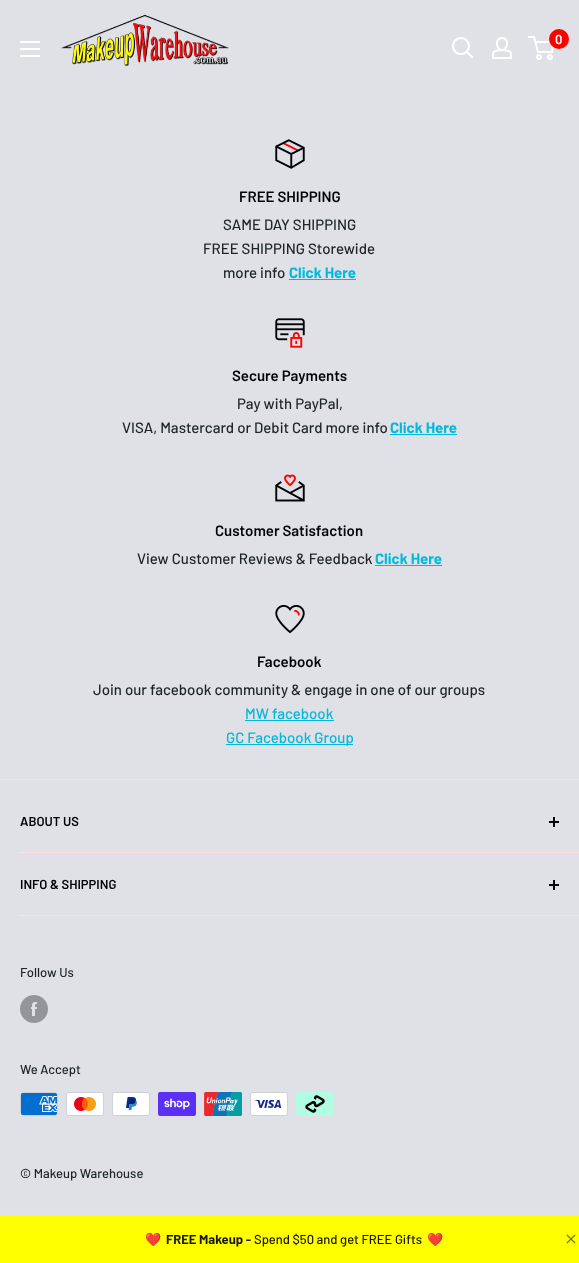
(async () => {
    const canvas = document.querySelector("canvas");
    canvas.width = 579;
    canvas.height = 1263;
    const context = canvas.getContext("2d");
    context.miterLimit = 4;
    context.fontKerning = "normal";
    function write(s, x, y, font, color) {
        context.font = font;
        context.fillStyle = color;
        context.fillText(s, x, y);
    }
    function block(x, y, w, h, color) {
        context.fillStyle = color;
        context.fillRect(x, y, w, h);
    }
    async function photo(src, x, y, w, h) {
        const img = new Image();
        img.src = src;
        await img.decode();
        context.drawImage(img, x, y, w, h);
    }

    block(0, 0, 579, 1263, "rgb(224, 225, 231)");
    await photo("media/1.png", 61, 14, 168, 53);
    context.beginPath();
    context.moveTo(472, 57);
    context.lineTo(466.5, 51.5);
    context.strokeStyle = "rgb(255, 255, 255)";
    context.lineWidth = 2.1;
    context.lineCap = "square";
    context.stroke();
    context.beginPath();
    context.arc(461, 46, 8, 0, Math.PI * 2);
    context.stroke();
    await photo("media/2.png", 492, 37, 20, 22);
    context.beginPath();
    context.arc(539, 57, 2, 0, Math.PI * 2);
    context.lineWidth = 2;
    context.stroke();
    context.beginPath();
    context.arc(550, 57, 2, 0, Math.PI * 2);
    context.stroke();
    context.beginPath();
    context.moveTo(535.5, 42);
    context.lineTo(553.5, 42);
    context.lineTo(552, 52);
    context.lineTo(538, 52);
    context.lineTo(534, 37);
    context.lineTo(528, 37);
    context.lineCap = "butt";
    context.stroke();
    context.fillStyle = "rgb(255, 0, 0)";
    context.beginPath();
    context.arc(559, 39, 10, 0, Math.PI * 2);
    context.fill();
    write("0", 555, 44, "600 13px Barlow", "rgb(255, 255, 255)");
    await photo("media/3.png", 20, 41, 20, 16);
    await photo("media/4.png", 275, 139, 30, 30);
    write("FREE SHIPPING", 239, 202, "600 15px Barlow", "rgb(0, 2, 8)");
    write("SAME DAY SHIPPING", 223, 230, "500 15px Barlow", "rgb(29, 37, 41)");
    write("FREE SHIPPING Storewide", 203, 254, "500 15px Barlow", "rgb(29, 37, 41)");
    write("more info", 223, 278, "500 15px Barlow", "rgb(29, 37, 41)");
    write("Click Here", 289, 278, "bold 15px Barlow", "rgb(0, 186, 219)");
    block(289, 279, 67, 1, "rgb(0, 186, 219)");
    await photo("media/5.png", 275, 318, 30, 30);
    write("Secure Payments", 232, 381, "600 15px Barlow", "rgb(0, 2, 8)");
    write("Pay with PayPal,", 237, 409, "500 15px Barlow", "rgb(29, 37, 41)");
    write("VISA, Mastercard or Debit Card more info", 122, 433, "500 15px Barlow", "rgb(29, 37, 41)");
    write("Click Here", 390, 433, "bold 15px Barlow", "rgb(0, 186, 219)");
    block(390, 434, 67, 1, "rgb(0, 186, 219)");
    await photo("media/6.png", 275, 474, 30, 28);
    write("Customer Satisfaction", 215, 536, "600 15px Barlow", "rgb(0, 2, 8)");
    write("View Customer Reviews & Feedback", 137, 564, "500 15px Barlow", "rgb(29, 37, 41)");
    write("Click Here", 375, 564, "bold 15px Barlow", "rgb(0, 186, 219)");
    block(375, 565, 67, 1, "rgb(0, 186, 219)");
    await photo("media/7.png", 275, 604, 30, 30);
    write("Facebook", 257, 667, "600 15px Barlow", "rgb(0, 2, 8)");
    write("Join our facebook community & engage in one of our groups", 93, 695, "500 15px Barlow", "rgb(29, 37, 41)");
    write("MW facebook", 245, 719, "500 15px Barlow", "rgb(0, 186, 219)");
    block(245, 720, 89, 1, "rgb(0, 186, 219)");
    block(226, 744, 127, 1, "rgb(0, 186, 219)");
    write("GC Facebook Group", 226, 743, "500 15px Barlow", "rgb(0, 186, 219)");
    block(0, 779, 579, 1, "rgb(255, 223, 223)");
    block(20, 852, 559, 1, "rgb(255, 223, 223)");
    write("ABOUT US", 20, 826, "600 13px Barlow", "rgb(0, 2, 8)");
    block(553, 817, 2, 10, "rgb(0, 2, 8)");
    block(549, 821, 10, 2, "rgb(0, 2, 8)");
    block(20, 915, 559, 1, "rgb(255, 223, 223)");
    write("INFO & SHIPPING", 20, 889, "600 13px Barlow", "rgb(0, 2, 8)");
    block(553, 880, 2, 10, "rgb(0, 2, 8)");
    block(549, 884, 10, 2, "rgb(0, 2, 8)");
    write("Follow Us", 20, 977, "500 13px Barlow", "rgb(29, 37, 41)");
    await photo("media/8.png", 20, 995, 28, 28);
    write("We Accept", 20, 1074, "500 13px Barlow", "rgb(29, 37, 41)");
    await photo("media/9.png", 20, 1092, 38, 24);
    await photo("media/10.png", 66, 1092, 38, 24);
    await photo("media/11.png", 112, 1092, 38, 24);
    await photo("media/12.png", 158, 1092, 38, 24);
    await photo("media/13.png", 204, 1092, 38, 24);
    await photo("media/14.png", 250, 1092, 38, 24);
    await photo("media/15.png", 296, 1092, 38, 24);
    write("© Makeup Warehouse", 20, 1178, "500 13px Barlow", "rgb(29, 37, 41)");
    block(0, 1215, 579, 48, "rgb(255, 255, 0)");
    write("❤️", 145, 1244, "13px Noto Color Emoji", "rgb(26, 26, 0)");
    write("FREE Makeup -", 166, 1244, "bold 13px Barlow", "rgb(26, 26, 0)");
    write("Spend $50 and get FREE Gifts", 254, 1244, "500 13px Barlow", "rgb(26, 26, 0)");
    write("❤️", 427, 1244, "13px Noto Color Emoji", "rgb(26, 26, 0)");
    await photo("media/16.png", 566, 1234, 10, 10);
})();
